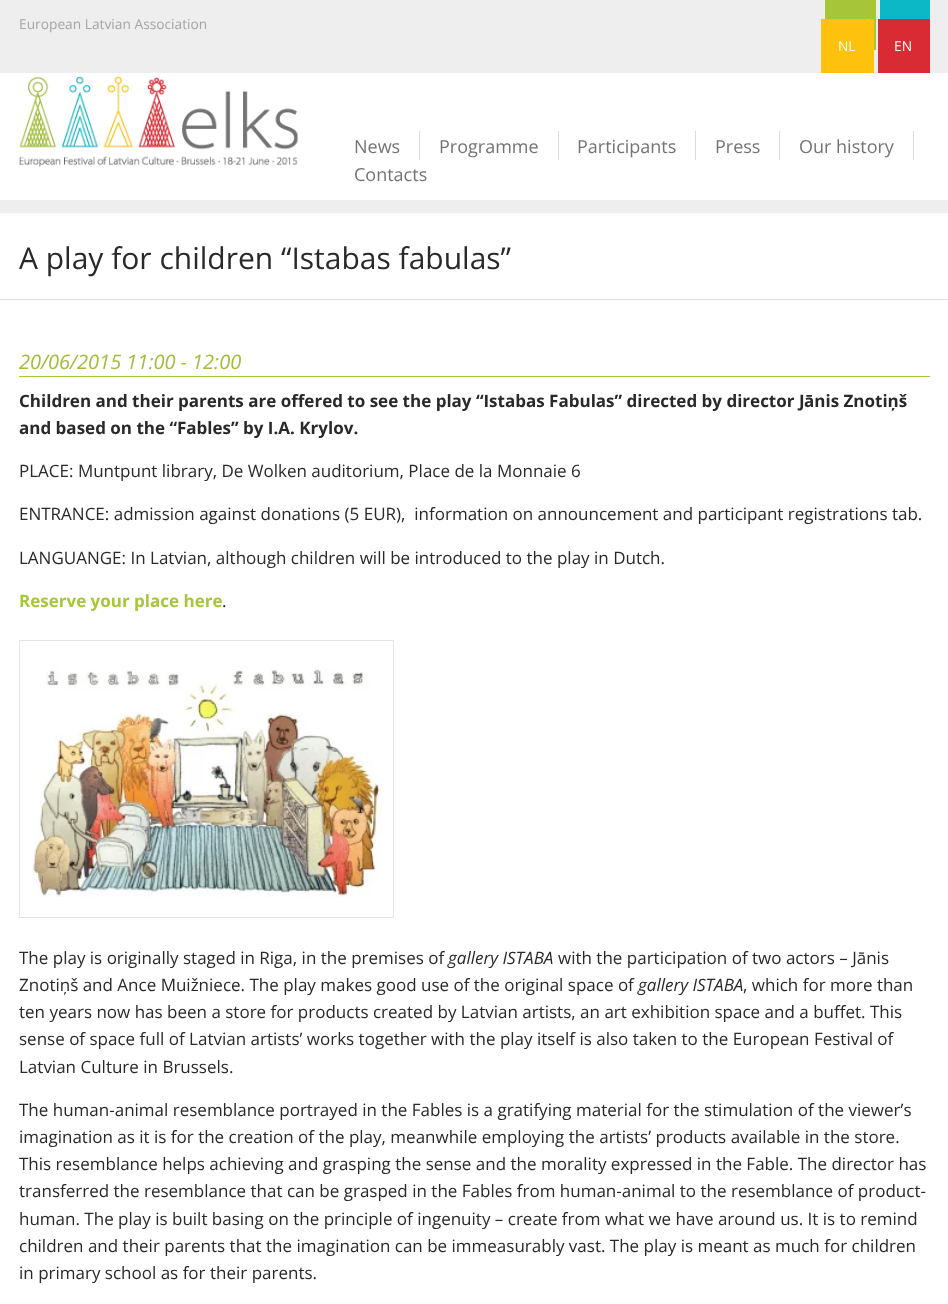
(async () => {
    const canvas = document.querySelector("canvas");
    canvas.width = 948;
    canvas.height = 1304;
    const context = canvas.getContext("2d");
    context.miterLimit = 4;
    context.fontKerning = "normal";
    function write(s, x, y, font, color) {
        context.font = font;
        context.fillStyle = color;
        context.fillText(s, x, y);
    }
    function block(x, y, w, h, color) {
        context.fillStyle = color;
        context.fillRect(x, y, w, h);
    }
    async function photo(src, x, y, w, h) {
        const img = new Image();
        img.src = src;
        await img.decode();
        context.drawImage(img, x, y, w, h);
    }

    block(0, 0, 948, 1304, "rgb(255, 255, 255)");
    block(0, 0, 948, 73, "rgb(238, 238, 238)");
    write("European Latvian Association", 19, 29, "13.75px Open Sans", "rgb(165, 166, 166)");
    block(825, 0, 51, 50, "rgb(167, 197, 56)");
    block(880, 0, 50, 19, "rgb(12, 184, 197)");
    block(821, 19, 53, 54, "rgb(254, 193, 13)");
    write("NL", 838, 51, "13.75px Open Sans", "rgb(255, 255, 255)");
    block(878, 19, 52, 54, "rgb(216, 43, 51)");
    write("EN", 894, 51, "13.75px Open Sans", "rgb(255, 255, 255)");
    await photo("media/1.png", 19, 76, 279, 91);
    block(419, 131, 1, 29, "rgb(221, 221, 221)");
    write("News", 354, 153, "18px Open Sans", "rgb(115, 115, 116)");
    block(558, 131, 1, 29, "rgb(221, 221, 221)");
    write("Programme", 439, 153, "18px Open Sans", "rgb(115, 115, 116)");
    block(695, 131, 1, 29, "rgb(221, 221, 221)");
    write("Participants", 577, 153, "18px Open Sans", "rgb(115, 115, 116)");
    block(779, 131, 1, 29, "rgb(221, 221, 221)");
    write("Press", 715, 153, "18px Open Sans", "rgb(115, 115, 116)");
    block(913, 131, 1, 29, "rgb(221, 221, 221)");
    write("Our history", 799, 153, "18px Open Sans", "rgb(115, 115, 116)");
    write("Contacts", 354, 181, "18px Open Sans", "rgb(115, 115, 116)");
    block(0, 200, 948, 13, "rgb(238, 238, 238)");
    write("A play for children “Istabas fabulas”", 19, 269, "30px Open Sans", "rgb(41, 41, 41)");
    block(0, 299, 948, 1, "rgb(221, 221, 221)");
    block(19, 376, 911, 1, "rgb(167, 199, 56)");
    write("20/06/2015 11:00 - 12:00", 19, 369, "italic 20px Open Sans", "rgb(161, 189, 58)");
    write("Children and their parents are offered to see the play “Istabas Fabulas” directed by director J", 19, 407, "bold 17px Open Sans", "rgb(41, 41, 41)");
    write("ānis Znotiņš", 804, 407, "bold 17px Open Sans", "rgb(41, 41, 41)");
    write("and based on the “Fables” by I.A. Krylov.", 19, 434, "bold 17px Open Sans", "rgb(41, 41, 41)");
    write("PLACE: Muntpunt library, De Wolken auditorium, Place de la Monnaie 6", 19, 477, "17px Open Sans", "rgb(41, 41, 41)");
    write("ENTRANCE: admission against donations (5 EUR),  information on announcement and participant registrations tab.", 19, 520, "17px Open Sans", "rgb(41, 41, 41)");
    write("LANGUANGE: In Latvian, although children will be introduced to the play in Dutch.", 19, 564, "17px Open Sans", "rgb(41, 41, 41)");
    write("Reserve your place here", 19, 607, "bold 17px Open Sans", "rgb(167, 199, 56)");
    write(".", 222, 607, "17px Open Sans", "rgb(41, 41, 41)");
    context.strokeStyle = "rgb(229, 229, 229)";
    context.strokeRect(19.5, 640.5, 374, 277);
    await photo("media/2.png", 31, 667, 351, 231);
    write("The play is originally staged in Riga, in the premises of", 19, 964, "17px Open Sans", "rgb(41, 41, 41)");
    write("gallery ISTABA", 448, 964, "italic 17px Open Sans", "rgb(41, 41, 41)");
    write("with the participation of two actors – Jānis", 558, 964, "17px Open Sans", "rgb(41, 41, 41)");
    write("Znotiņš and Ance Muižniece. The play makes good use of the original space of", 19, 991, "17px Open Sans", "rgb(41, 41, 41)");
    write("gallery ISTABA", 638, 991, "italic 17px Open Sans", "rgb(41, 41, 41)");
    write(", which for more than", 743, 991, "17px Open Sans", "rgb(41, 41, 41)");
    write("ten years now has been a store for products created by Latvian artists, an art exhibition space and a buffet. This", 19, 1018, "17px Open Sans", "rgb(41, 41, 41)");
    write("sense of space full of Latvian artists’ works together with the play itself is also taken to the European Festival of", 19, 1045, "17px Open Sans", "rgb(41, 41, 41)");
    write("Latvian Culture in Brussels.", 19, 1073, "17px Open Sans", "rgb(41, 41, 41)");
    write("The human-animal resemblance portrayed in the Fables is a gratifying material for the stimulation of the viewer’s", 19, 1116, "17px Open Sans", "rgb(41, 41, 41)");
    write("imagination as it is for the creation of the play, meanwhile employing the artists’ products available in the store.", 19, 1143, "17px Open Sans", "rgb(41, 41, 41)");
    write("This resemblance helps achieving and grasping the sense and the morality expressed in the Fable. The director has", 19, 1170, "17px Open Sans", "rgb(41, 41, 41)");
    write("transferred the resemblance that can be grasped in the Fables from human-animal to the resemblance of product-", 19, 1197, "17px Open Sans", "rgb(41, 41, 41)");
    write("human. The play is built basing on the principle of ingenuity – create from what we have around us. It is to remind", 19, 1225, "17px Open Sans", "rgb(41, 41, 41)");
    write("children and their parents that the imagination can be immeasurably vast. The play is meant as much for children", 19, 1252, "17px Open Sans", "rgb(41, 41, 41)");
    write("in primary school as for their parents.", 19, 1279, "17px Open Sans", "rgb(41, 41, 41)");
})();
